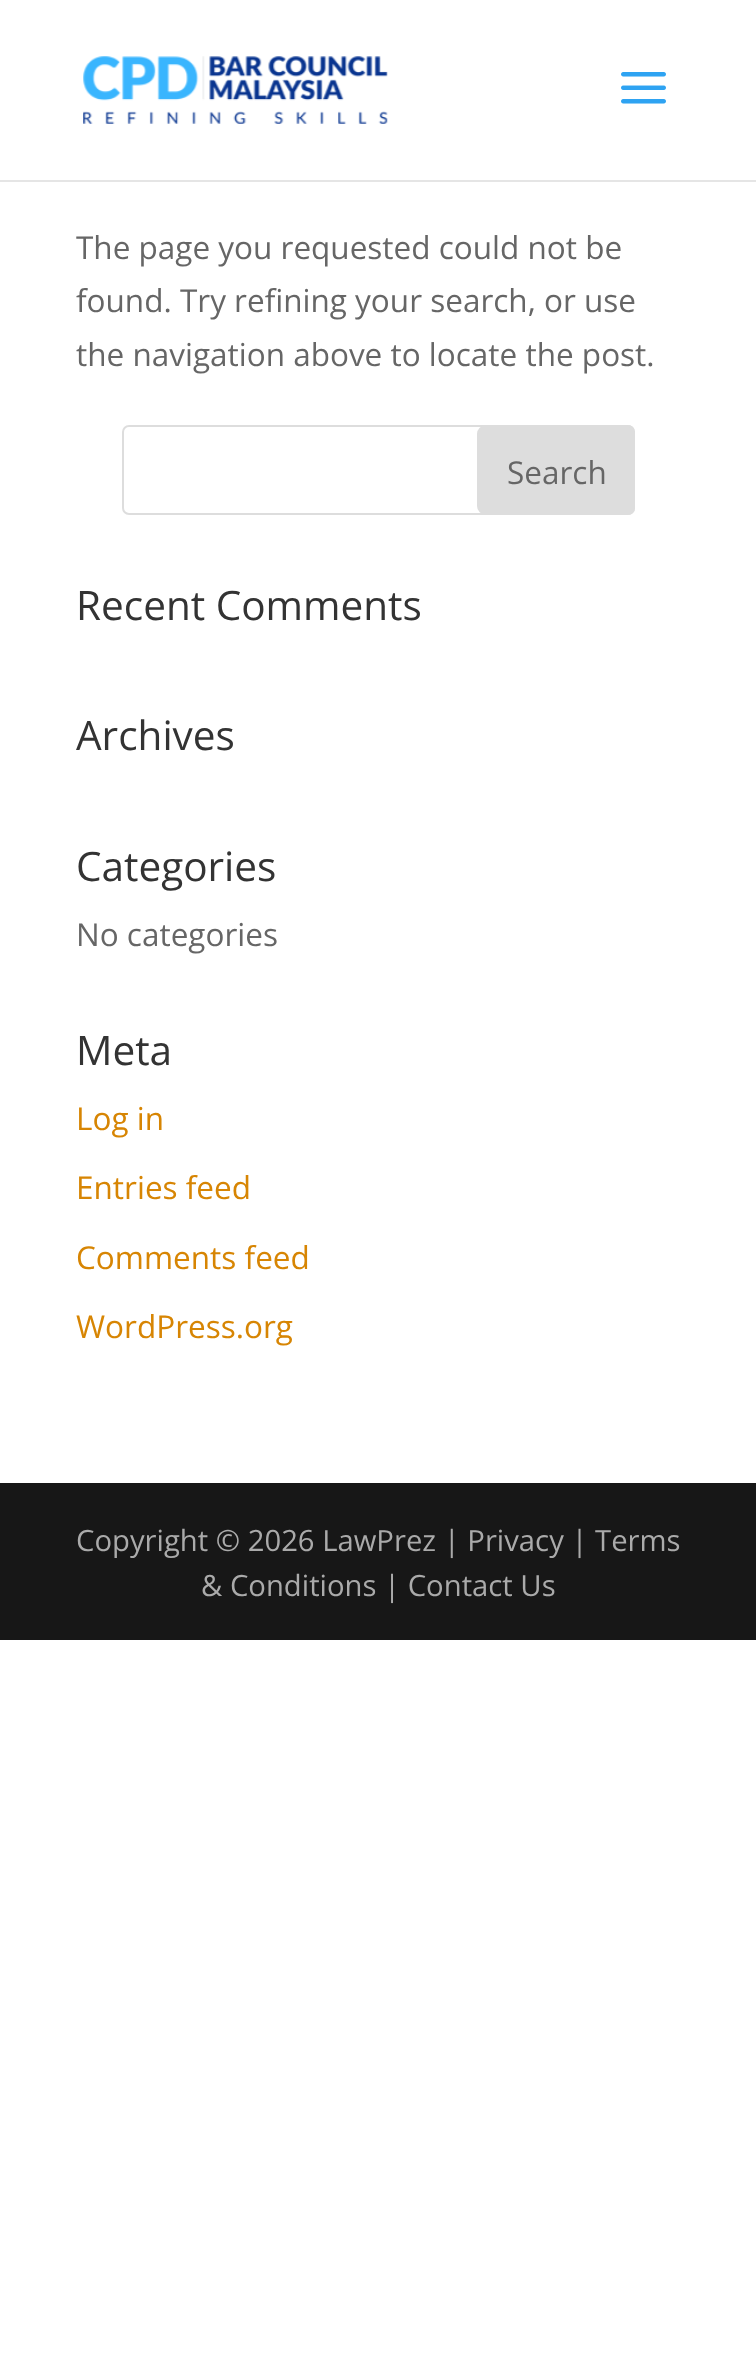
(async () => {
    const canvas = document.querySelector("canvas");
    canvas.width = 756;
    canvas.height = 2373;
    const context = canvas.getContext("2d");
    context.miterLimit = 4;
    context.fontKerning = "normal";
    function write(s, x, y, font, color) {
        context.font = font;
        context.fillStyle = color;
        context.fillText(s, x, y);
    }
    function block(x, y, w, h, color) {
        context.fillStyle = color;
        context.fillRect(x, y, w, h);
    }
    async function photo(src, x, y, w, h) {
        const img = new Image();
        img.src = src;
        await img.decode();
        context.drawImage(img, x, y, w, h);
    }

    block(0, 0, 756, 2373, "rgb(255, 255, 255)");
    block(0, 180, 756, 2, "rgba(0, 0, 0, 0.1)");
    await photo("media/1.png", 83, 56, 305, 68);
    await photo("media/2.png", 621, 72, 45, 32);
    write("The page you requested could not be", 76, 259, "31.5px Open Sans", "rgb(102, 102, 102)");
    write("found. Try refining your search, or use", 76, 312, "31.5px Open Sans", "rgb(102, 102, 102)");
    write("the navigation above to locate the post.", 76, 366, "31.5px Open Sans", "rgb(102, 102, 102)");
    context.beginPath();
    context.roundRect(123, 426, 511, 88, 6);
    context.strokeStyle = "rgb(221, 221, 221)";
    context.lineWidth = 2;
    context.stroke();
    context.fillStyle = "rgb(221, 221, 221)";
    context.beginPath();
    context.roundRect(478, 426, 156, 88, [8, 6, 6, 8]);
    context.fill();
    context.stroke();
    write("Search", 507, 484, "31.5px Open Sans", "rgb(102, 102, 102)");
    write("Recent Comments", 76, 620, "40.5px Open Sans", "rgb(51, 51, 51)");
    write("Archives", 76, 750, "40.5px Open Sans", "rgb(51, 51, 51)");
    write("Categories", 76, 881, "40.5px Open Sans", "rgb(51, 51, 51)");
    write("No categories", 76, 946, "31.5px Open Sans", "rgb(102, 102, 102)");
    write("Meta", 76, 1065, "40.5px Open Sans", "rgb(51, 51, 51)");
    write("Log in", 76, 1130, "31.5px Open Sans", "rgb(215, 133, 3)");
    write("Entries feed", 76, 1199, "31.5px Open Sans", "rgb(215, 133, 3)");
    write("Comments feed", 76, 1269, "31.5px Open Sans", "rgb(215, 133, 3)");
    write("WordPress.org", 76, 1338, "31.5px Open Sans", "rgb(215, 133, 3)");
    block(0, 1483, 756, 157, "rgb(23, 23, 23)");
    write("Copyright © 2026 LawPrez | Privacy | Terms", 76, 1551, "29.25px Open Sans", "rgb(170, 170, 170)");
    write("& Conditions | Contact Us", 201, 1596, "29.25px Open Sans", "rgb(170, 170, 170)");
})();
